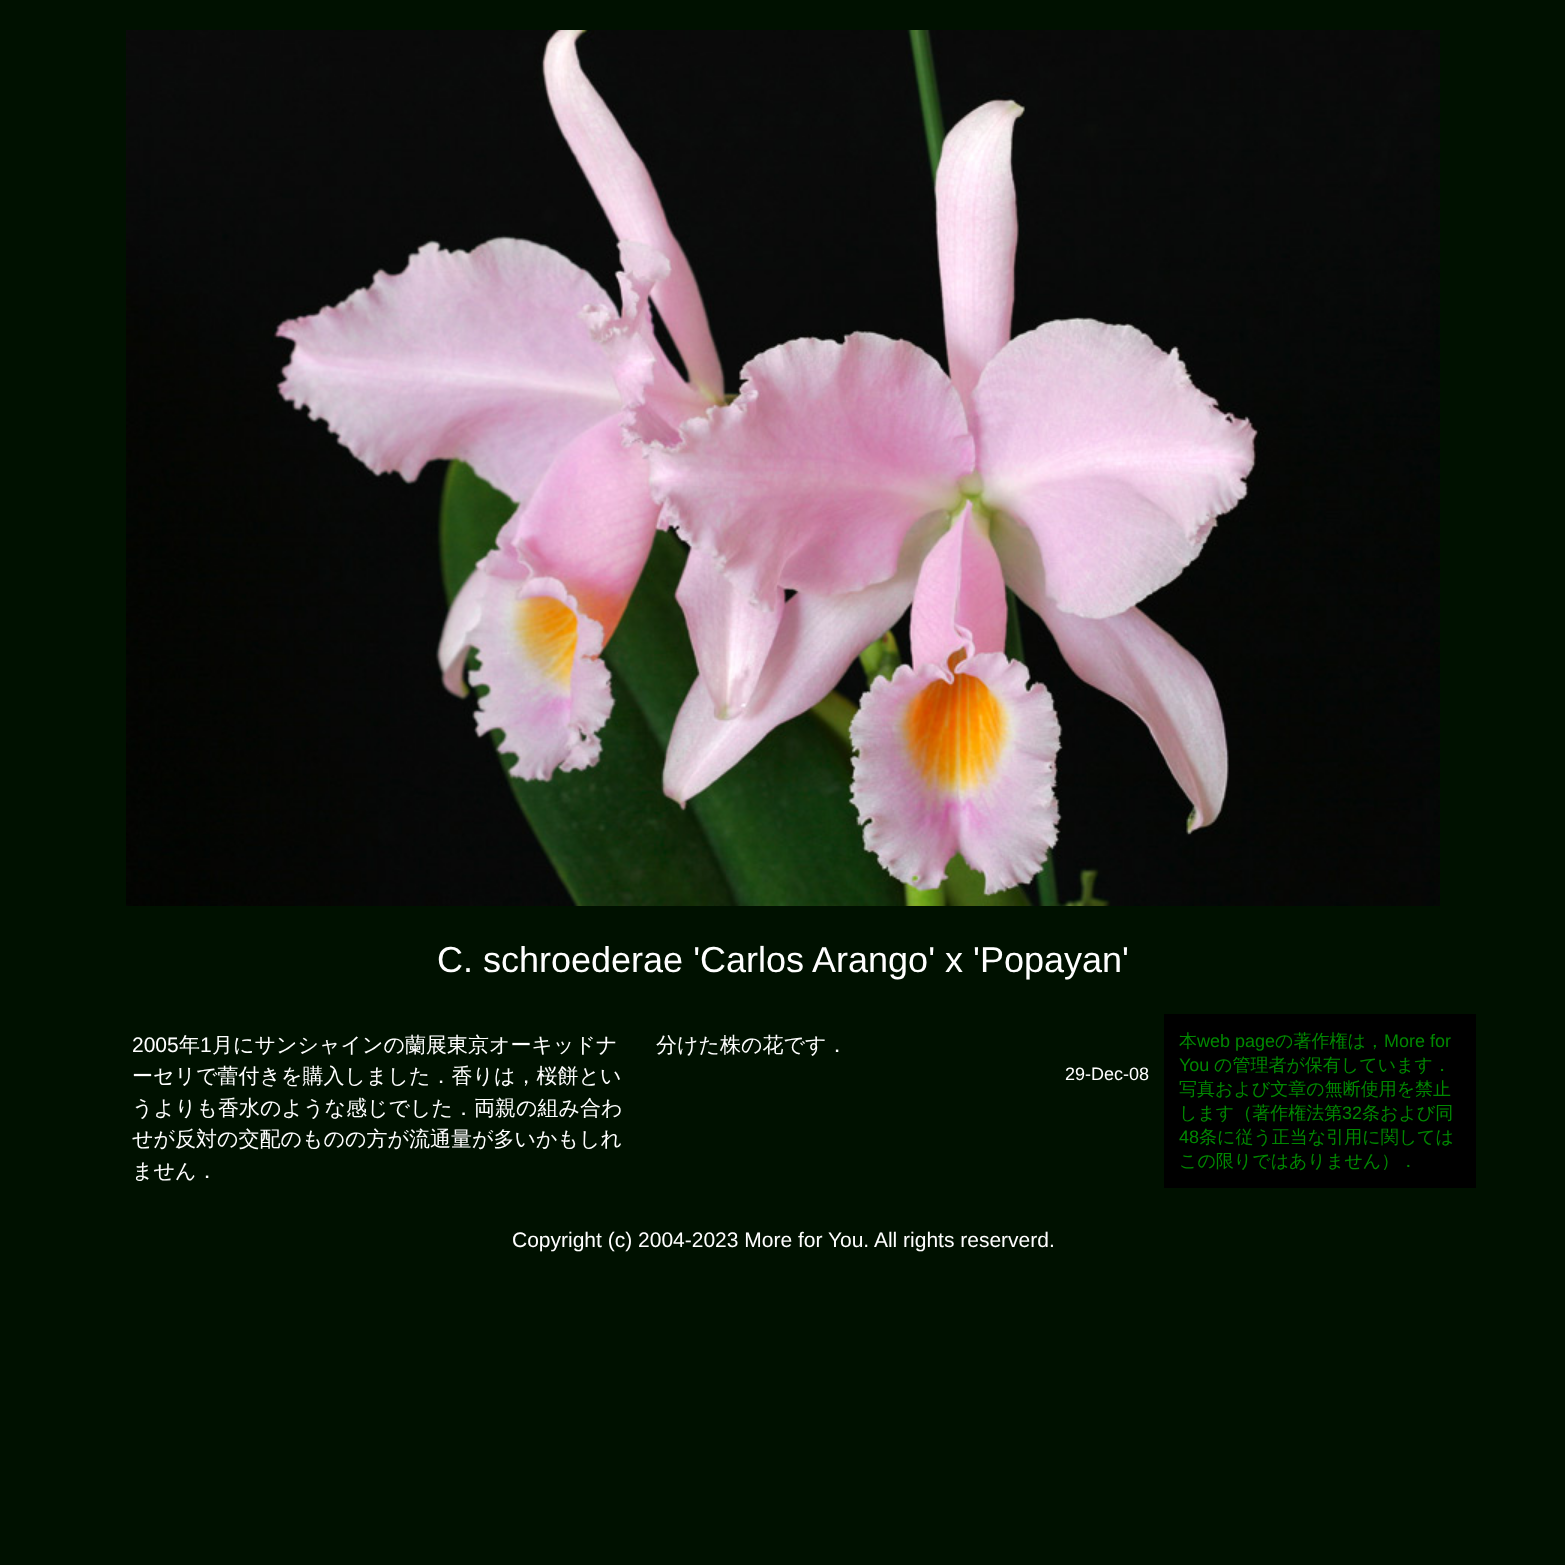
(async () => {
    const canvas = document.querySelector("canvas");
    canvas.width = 1565;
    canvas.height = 1565;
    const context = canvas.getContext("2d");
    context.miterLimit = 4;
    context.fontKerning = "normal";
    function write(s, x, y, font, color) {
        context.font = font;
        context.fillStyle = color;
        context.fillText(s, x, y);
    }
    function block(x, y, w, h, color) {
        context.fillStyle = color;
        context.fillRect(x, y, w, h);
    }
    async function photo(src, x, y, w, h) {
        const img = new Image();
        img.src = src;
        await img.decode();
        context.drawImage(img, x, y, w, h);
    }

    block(0, 0, 1565, 1565, "rgb(0, 17, 0)");
    await photo("media/1.png", 126, 30, 1314, 876);
    write("C. schroederae 'Carlos Arango' x 'Popayan'", 437, 972, "36px Liberation Sans", "rgb(255, 255, 255)");
    write("2005", 132, 1052, "21px Liberation Sans", "rgb(255, 255, 255)");
    write("年", 179, 1052, "500 21px WenQuanYi Zen Hei", "rgb(255, 255, 255)");
    write("1", 200, 1052, "21px Liberation Sans", "rgb(255, 255, 255)");
    write("月にサンシャインの蘭展東京オーキッドナ", 212, 1052, "500 21px WenQuanYi Zen Hei", "rgb(255, 255, 255)");
    write("ーセリで蕾付きを購入しました．香りは，桜餅とい", 132, 1083, "500 21px WenQuanYi Zen Hei", "rgb(255, 255, 255)");
    write("うよりも香水のような感じでした．両親の組み合わ", 132, 1115, "500 21px WenQuanYi Zen Hei", "rgb(255, 255, 255)");
    write("せが反対の交配のものの方が流通量が多いかもしれ", 132, 1146, "500 21px WenQuanYi Zen Hei", "rgb(255, 255, 255)");
    write("ません．", 132, 1178, "500 21px WenQuanYi Zen Hei", "rgb(255, 255, 255)");
    write("分けた株の花です．", 656, 1052, "500 21px WenQuanYi Zen Hei", "rgb(255, 255, 255)");
    write("29-Dec-08", 1065, 1080, "18px Liberation Sans", "rgb(255, 255, 255)");
    block(1164, 1014, 312, 174, "rgb(0, 0, 0)");
    write("本", 1179, 1047, "500 18px WenQuanYi Zen Hei", "rgb(0, 136, 0)");
    write("web page", 1197, 1047, "18px Liberation Sans", "rgb(0, 136, 0)");
    write("の著作権は，", 1275, 1047, "500 18px WenQuanYi Zen Hei", "rgb(0, 136, 0)");
    write("More for", 1384, 1047, "18px Liberation Sans", "rgb(0, 136, 0)");
    write("You", 1179, 1071, "18px Liberation Sans", "rgb(0, 136, 0)");
    write("の管理者が保有しています．", 1214, 1071, "500 18px WenQuanYi Zen Hei", "rgb(0, 136, 0)");
    write("写真および文章の無断使用を禁止", 1179, 1095, "500 18px WenQuanYi Zen Hei", "rgb(0, 136, 0)");
    write("します（著作権法第", 1179, 1119, "500 18px WenQuanYi Zen Hei", "rgb(0, 136, 0)");
    write("32", 1342, 1119, "18px Liberation Sans", "rgb(0, 136, 0)");
    write("条および同", 1362, 1119, "500 18px WenQuanYi Zen Hei", "rgb(0, 136, 0)");
    write("48", 1179, 1143, "18px Liberation Sans", "rgb(0, 136, 0)");
    write("条に従う正当な引用に関しては", 1199, 1143, "500 18px WenQuanYi Zen Hei", "rgb(0, 136, 0)");
    write("この限りではありません）．", 1179, 1167, "500 18px WenQuanYi Zen Hei", "rgb(0, 136, 0)");
    write("Copyright (c) 2004-2023 More for You. All rights reserverd.", 512, 1247, "21px Liberation Sans", "rgb(255, 255, 255)");
})();
